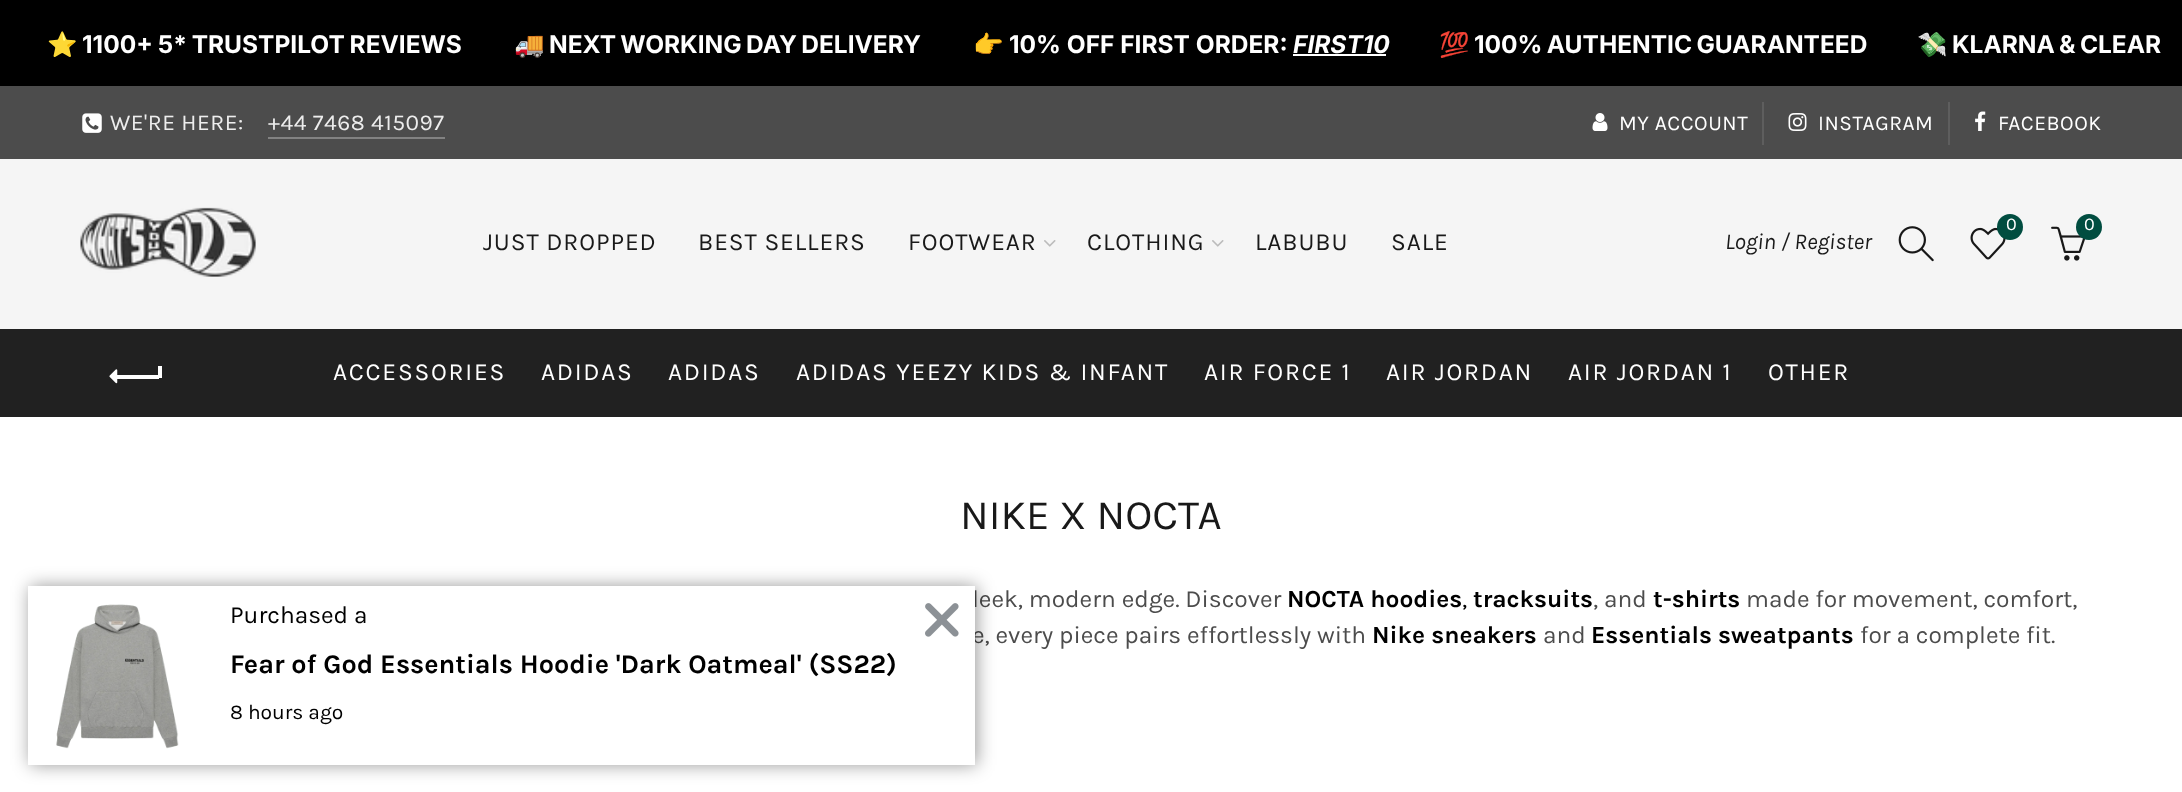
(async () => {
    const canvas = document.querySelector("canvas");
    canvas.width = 2182;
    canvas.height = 792;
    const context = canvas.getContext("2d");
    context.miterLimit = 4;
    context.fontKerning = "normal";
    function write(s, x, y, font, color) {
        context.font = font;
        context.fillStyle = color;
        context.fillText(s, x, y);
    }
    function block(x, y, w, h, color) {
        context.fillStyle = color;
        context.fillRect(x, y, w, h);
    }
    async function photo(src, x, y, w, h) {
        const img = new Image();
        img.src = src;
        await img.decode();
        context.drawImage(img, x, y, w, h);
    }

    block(0, 0, 2182, 792, "rgb(76, 76, 76)");
    block(0, 0, 2182, 86, "rgb(0, 0, 0)");
    write("⭐️", 47, 53, "bold 24.5px Noto Color Emoji", "rgb(255, 255, 255)");
    context.wordSpacing = "-1px";
    write("1100+ 5* TRUSTPILOT REVIEWS", 82, 53, "bold 24.5px Inter", "rgb(255, 255, 255)");
    context.wordSpacing = "0px";
    write("🚚", 514, 53, "bold 24.5px Noto Color Emoji", "rgb(255, 255, 255)");
    context.wordSpacing = "-1.5px";
    write("NEXT WORKING DAY DELIVERY", 549, 53, "bold 24.5px Inter", "rgb(255, 255, 255)");
    context.wordSpacing = "0px";
    write("👉", 973, 53, "bold 24.5px Noto Color Emoji", "rgb(255, 255, 255)");
    write("10% OFF FIRST ORDER:", 1009, 53, "bold 24.5px Inter", "rgb(255, 255, 255)");
    write("FIRST10", 1293, 53, "italic bold 24.5px Inter", "rgb(255, 255, 255)");
    block(1293, 54, 93, 2, "rgb(255, 255, 255)");
    write("💯", 1439, 53, "bold 24.5px Noto Color Emoji", "rgb(255, 255, 255)");
    context.wordSpacing = "-1.5px";
    write("100% AUTHENTIC GUARANTEED", 1474, 53, "bold 24.5px Inter", "rgb(255, 255, 255)");
    context.wordSpacing = "0px";
    write("💸", 1917, 53, "bold 24.5px Noto Color Emoji", "rgb(255, 255, 255)");
    context.wordSpacing = "-1.5px";
    write("KLARNA & CLEAR", 1952, 53, "bold 24.5px Inter", "rgb(255, 255, 255)");
    await photo("media/1.png", 82, 113, 20, 20);
    context.letterSpacing = "0.5px";
    context.wordSpacing = "0px";
    write("WE'RE HERE:", 110, 130, "22.75px Karla", "rgb(237, 237, 237)");
    write("+44 7468 415097", 268, 130, "22.75px Karla", "rgb(237, 237, 237)");
    block(268, 137, 177, 2, "rgb(130, 130, 130)");
    await photo("media/2.png", 1592, 113, 16, 18);
    write("MY ACCOUNT", 1619, 130, "21px Karla", "rgb(255, 255, 255)");
    block(1762, 102, 2, 43, "rgb(94, 94, 94)");
    await photo("media/3.png", 1788, 113, 19, 18);
    write("INSTAGRAM", 1818, 130, "21px Karla", "rgb(255, 255, 255)");
    block(1948, 102, 2, 43, "rgb(94, 94, 94)");
    await photo("media/4.png", 1975, 111, 11, 20);
    write("FACEBOOK", 1998, 130, "21px Karla", "rgb(255, 255, 255)");
    block(0, 159, 2182, 170, "rgb(245, 245, 245)");
    await photo("media/5.png", 80, 207, 176, 70);
    context.letterSpacing = "0.9px";
    write("JUST DROPPED", 483, 250, "24.5px Karla", "rgb(25, 25, 25)");
    write("BEST SELLERS", 698, 250, "24.5px Karla", "rgb(25, 25, 25)");
    write("FOOTWEAR", 908, 250, "24.5px Karla", "rgb(25, 25, 25)");
    await photo("media/6.png", 1044, 240, 12, 7);
    write("CLOTHING", 1087, 250, "24.5px Karla", "rgb(25, 25, 25)");
    await photo("media/6.png", 1212, 240, 12, 7);
    write("LABUBU", 1255, 250, "24.5px Karla", "rgb(25, 25, 25)");
    write("SALE", 1391, 250, "24.5px Karla", "rgb(25, 25, 25)");
    await photo("media/7.png", 1970, 227, 36, 33);
    context.fillStyle = "rgb(1, 77, 64)";
    context.beginPath();
    context.arc(2010, 227, 13, 0, Math.PI * 2);
    context.fill();
    context.letterSpacing = "0px";
    write("0", 2006, 230, "18px Karla", "rgb(255, 255, 255)");
    await photo("media/8.png", 2051, 226, 35, 35);
    context.fillStyle = "rgb(1, 77, 64)";
    context.beginPath();
    context.arc(2089, 227, 13, 0, Math.PI * 2);
    context.fill();
    write("0", 2084, 230, "18px Karla", "rgb(255, 255, 255)");
    write("Login / Register", 1725, 249, "italic 22.75px Karla", "rgb(25, 25, 25)");
    await photo("media/9.png", 1898, 226, 36, 36);
    block(0, 417, 2182, 375, "rgb(255, 255, 255)");
    block(0, 329, 2182, 88, "rgb(33, 33, 33)");
    block(116, 375, 43, 4, "rgb(255, 255, 255)");
    await photo("media/10.png", 109, 369, 9, 15);
    block(158, 366, 4, 12, "rgb(255, 255, 255)");
    context.letterSpacing = "1.75px";
    write("ACCESSORIES", 333, 380, "24.5px Karla", "rgb(255, 255, 255)");
    write("ADIDAS", 541, 380, "24.5px Karla", "rgb(255, 255, 255)");
    write("ADIDAS", 668, 380, "24.5px Karla", "rgb(255, 255, 255)");
    write("ADIDAS YEEZY KIDS & INFANT", 796, 380, "24.5px Karla", "rgb(255, 255, 255)");
    write("AIR FORCE 1", 1204, 380, "24.5px Karla", "rgb(255, 255, 255)");
    write("AIR JORDAN", 1386, 380, "24.5px Karla", "rgb(255, 255, 255)");
    write("AIR JORDAN 1", 1568, 380, "24.5px Karla", "rgb(255, 255, 255)");
    write("OTHER", 1768, 380, "24.5px Karla", "rgb(255, 255, 255)");
    context.letterSpacing = "0px";
    write("NIKE X NOCTA", 960, 529, "42px Karla", "rgb(25, 25, 25)");
    write("leek, modern edge. Discover", 972, 607, "24.5px Karla", "rgb(76, 76, 76)");
    write("NOCTA hoodies", 1287, 607, "bold 24.5px Karla", "rgb(0, 0, 0)");
    write(",", 1462, 607, "24.5px Karla", "rgb(0, 0, 0)");
    write("tracksuits", 1473, 607, "bold 24.5px Karla", "rgb(0, 0, 0)");
    write(", and", 1593, 607, "24.5px Karla", "rgb(76, 76, 76)");
    write("t-shirts", 1653, 607, "bold 24.5px Karla", "rgb(0, 0, 0)");
    write("made for movement, comfort,", 1746, 607, "24.5px Karla", "rgb(76, 76, 76)");
    write("e, every piece pairs effortlessly with", 972, 643, "24.5px Karla", "rgb(76, 76, 76)");
    write("Nike sneakers", 1372, 643, "bold 24.5px Karla", "rgb(0, 0, 0)");
    write("and", 1543, 643, "24.5px Karla", "rgb(76, 76, 76)");
    write("Essentials sweatpants", 1591, 643, "bold 24.5px Karla", "rgb(0, 0, 0)");
    write("for a complete fit.", 1860, 643, "24.5px Karla", "rgb(76, 76, 76)");
    context.fillStyle = "rgba(0, 0, 0, 0.4)";
    context.filter = "blur(9px)";
    context.beginPath();
    context.rect(30, 586, 947, 179);
    context.fill();
    context.filter = "none";
    block(28, 586, 947, 179, "rgb(255, 255, 255)");
    await photo("media/11.png", 56, 604, 123, 145);
    write("Purchased a", 230, 623, "24.5px Karla", "rgb(0, 0, 0)");
    write("Fear of God Essentials Hoodie 'Dark Oatmeal' (SS22)", 230, 673, "bold 26.95px Karla", "rgb(0, 0, 0)");
    write("8 hours ago", 230, 719, "21px Karla", "rgb(0, 0, 0)");
    await photo("media/12.png", 925, 603, 34, 34);
})();
